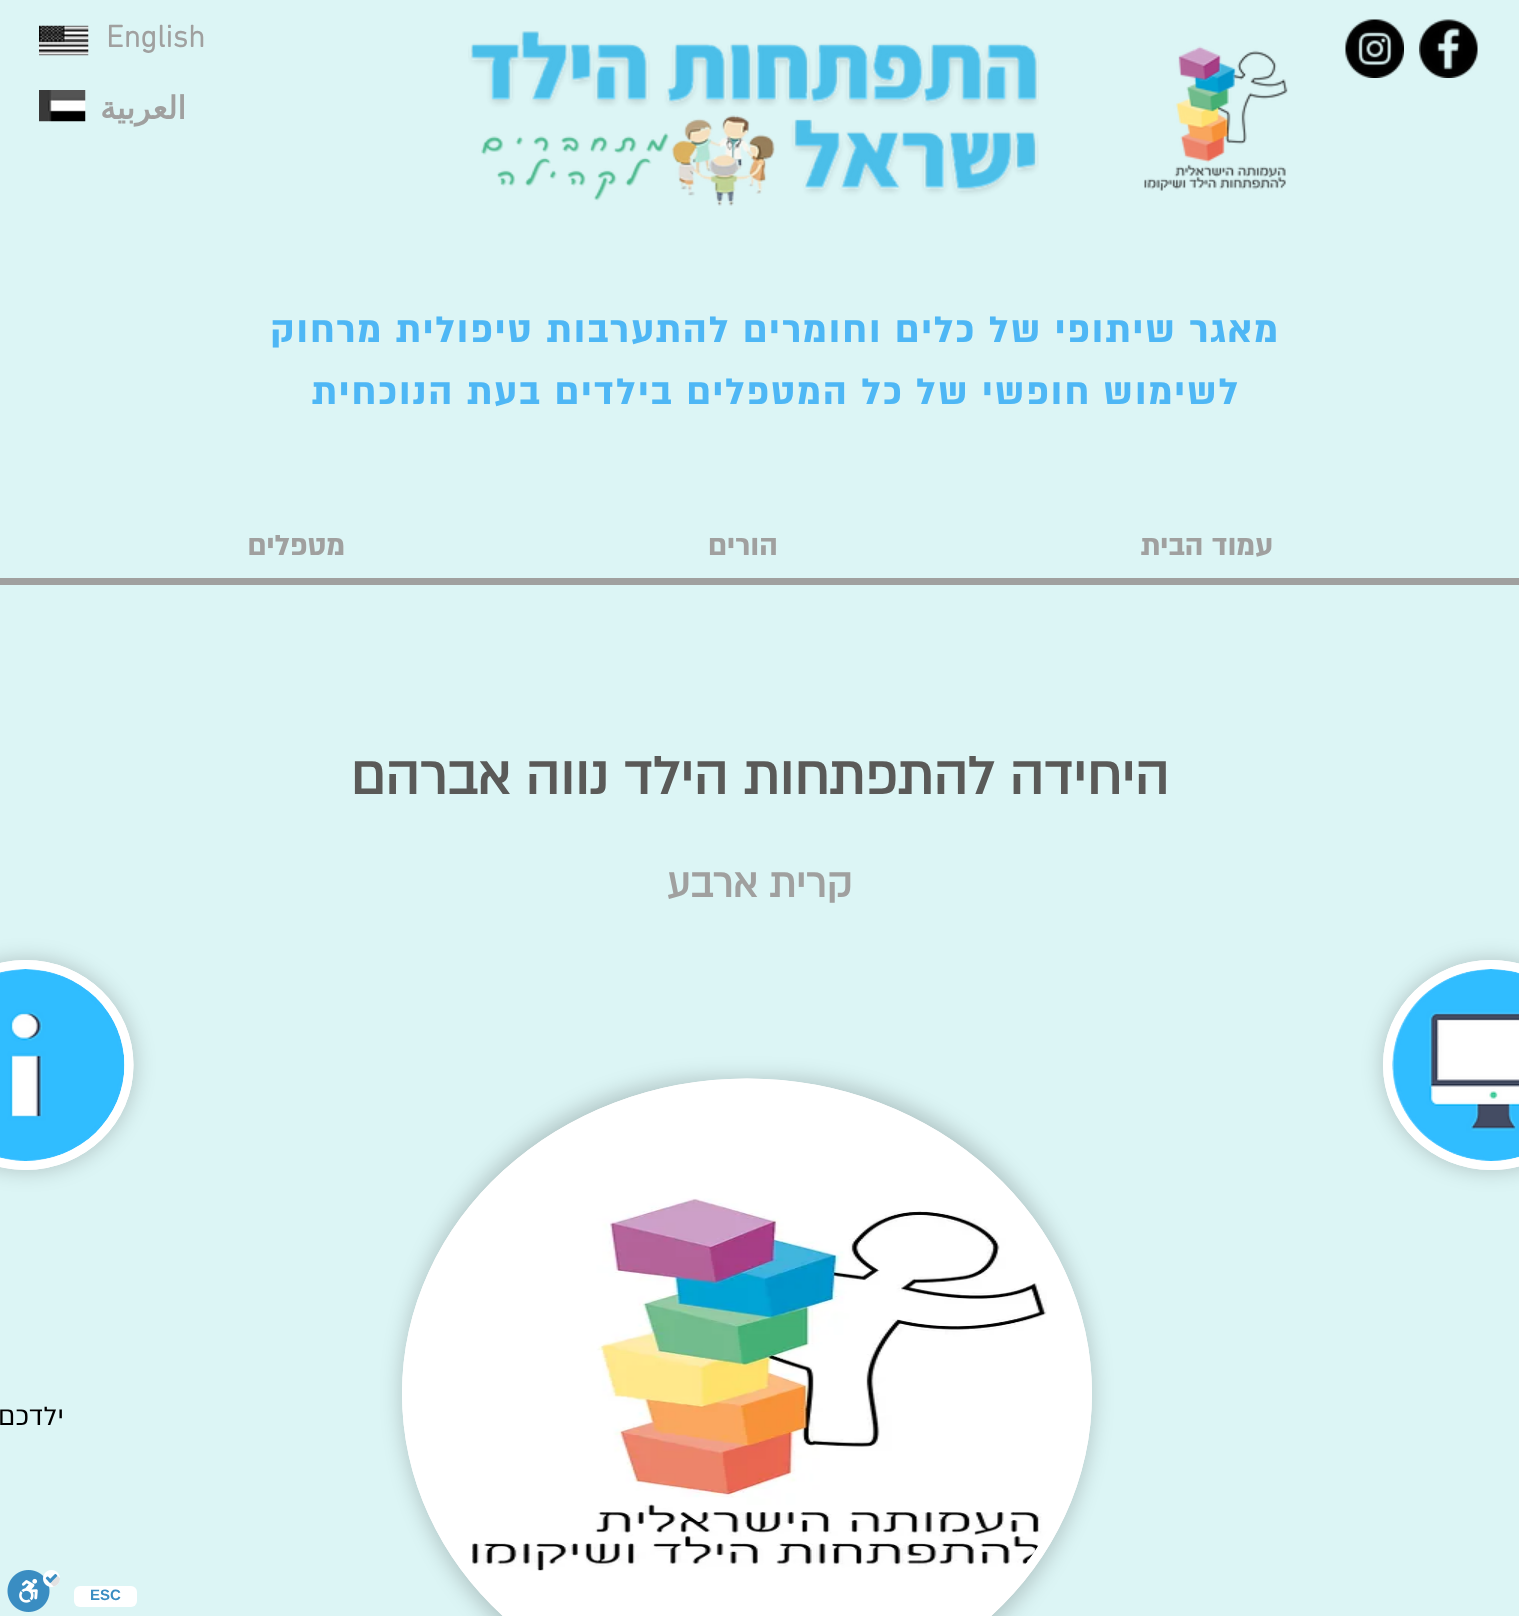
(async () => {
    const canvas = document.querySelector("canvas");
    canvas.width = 1519;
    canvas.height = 1616;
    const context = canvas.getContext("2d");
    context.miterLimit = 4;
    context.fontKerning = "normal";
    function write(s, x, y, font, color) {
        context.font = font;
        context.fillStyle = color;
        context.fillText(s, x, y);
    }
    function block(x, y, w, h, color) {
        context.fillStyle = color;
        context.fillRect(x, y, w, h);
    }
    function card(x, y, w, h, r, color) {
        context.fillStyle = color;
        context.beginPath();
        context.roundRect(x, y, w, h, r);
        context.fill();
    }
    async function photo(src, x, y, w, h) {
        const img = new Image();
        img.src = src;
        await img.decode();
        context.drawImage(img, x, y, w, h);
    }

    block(0, 0, 1519, 1616, "rgb(220, 245, 245)");
    await photo("media/1.png", 1419, 19, 59, 59);
    await photo("media/2.png", 1345, 19, 59, 59);
    await photo("media/3.png", 1144, 46, 144, 145);
    await photo("media/4.png", 468, 31, 571, 175);
    write("English", 106, 47, "bold 31.5px 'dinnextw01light'", "rgb(160, 160, 159)");
    await photo("media/5.png", 39, 25, 50, 31);
    context.direction = "rtl";
    write("العربية", 186, 119, "bold 31.5px DejaVu Sans", "rgb(160, 160, 159)");
    await photo("media/6.png", 39, 90, 47, 32);
    context.letterSpacing = "2.1px";
    write("מאגר שיתופי של כלים וחומרים להתערבות טיפולית מרחוק", 1280, 342, "bold 42px 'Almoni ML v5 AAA'", "rgb(78, 183, 245)");
    write("לשימוש חופשי של כל המטפלים בילדים בעת הנוכחית", 1240, 404, "bold 42px 'Almoni ML v5 AAA'", "rgb(78, 183, 245)");
    context.letterSpacing = "0px";
    write("עמוד הבית", 1273, 555, "bold 33px 'Almoni ML v5 AAA'", "rgb(160, 160, 159)");
    write("הורים", 778, 555, "bold 33px 'Almoni ML v5 AAA'", "rgb(160, 160, 159)");
    write("מטפלים", 345, 555, "bold 33px 'Almoni ML v5 AAA'", "rgb(160, 160, 159)");
    block(0, 578, 1519, 7, "rgb(160, 160, 159)");
    write("היחידה להתפתחות הילד נווה אברהם", 1169, 794, "bold 60px 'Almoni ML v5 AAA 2'", "rgb(90, 90, 88)");
    write("קרית ארבע", 852, 897, "bold 45px 'Almoni ML v5 AAA 2'", "rgb(160, 160, 159)");
    context.fillStyle = "rgba(0, 0, 0, 0.2)";
    context.filter = "blur(10.5px)";
    context.beginPath();
    context.roundRect(1383, 960, 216, 210, 105);
    context.fill();
    context.filter = "none";
    context.fillStyle = "rgb(255, 255, 255)";
    context.beginPath();
    context.ellipse(1491, 1065, 108, 105, 0, 0, Math.PI * 2);
    context.fill();
    context.beginPath();
    context.moveTo(1491, 964.5);
    context.bezierCurveTo(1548, 964.5, 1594.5, 1009.5, 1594.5, 1065);
    context.bezierCurveTo(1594.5, 1120.5, 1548, 1165.5, 1491, 1165.5);
    context.bezierCurveTo(1434, 1165.5, 1387.5, 1120.5, 1387.5, 1065);
    context.bezierCurveTo(1387.5, 1009.5, 1434, 964.5, 1491, 964.5);
    context.closePath();
    context.strokeStyle = "rgb(255, 255, 255)";
    context.lineWidth = 9;
    context.stroke();
    await photo("media/7.png", 1392, 969, 127, 192);
    context.fillStyle = "rgba(0, 0, 0, 0.2)";
    context.filter = "blur(10.5px)";
    context.beginPath();
    context.roundRect(402, 1079, 690, 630, 315);
    context.fill();
    context.filter = "none";
    context.fillStyle = "rgb(255, 255, 255)";
    context.beginPath();
    context.ellipse(747, 1393.5, 345, 315, 0, 0, Math.PI * 2);
    context.fill();
    context.beginPath();
    context.moveTo(747, 1083);
    context.bezierCurveTo(935, 1083, 1087.5, 1222, 1087.5, 1393.5);
    context.bezierCurveTo(1087.5, 1565, 935, 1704, 747, 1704);
    context.bezierCurveTo(559, 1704, 406.5, 1565, 406.5, 1393.5);
    context.bezierCurveTo(406.5, 1222, 559, 1083, 747, 1083);
    context.closePath();
    context.stroke();
    await photo("media/8.png", 472, 1198, 575, 373);
    context.fillStyle = "rgba(0, 0, 0, 0.2)";
    context.filter = "blur(10.5px)";
    context.beginPath();
    context.roundRect(-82, 960, 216, 210, 105);
    context.fill();
    context.filter = "none";
    context.fillStyle = "rgb(255, 255, 255)";
    context.beginPath();
    context.ellipse(25.5, 1065, 108, 105, 0, 0, Math.PI * 2);
    context.fill();
    context.beginPath();
    context.moveTo(25.5, 964.5);
    context.bezierCurveTo(82.5, 964.5, 129, 1009.5, 129, 1065);
    context.bezierCurveTo(129, 1120.5, 82.5, 1165.5, 25.5, 1165.5);
    context.bezierCurveTo(-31.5, 1165.5, -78, 1120.5, -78, 1065);
    context.bezierCurveTo(-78, 1009.5, -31.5, 964.5, 25.5, 964.5);
    context.closePath();
    context.stroke();
    await photo("media/9.png", 0, 969, 125, 192);
    write("ילדכם.", 64, 1425, "30px 'Almoni ML v5 AAA'", "rgb(0, 0, 0)");
    card(74, 1586, 63, 21, 6, "rgb(255, 255, 255)");
    context.direction = "ltr";
    write("ESC", 90, 1600, "bold 15px Liberation Sans", "rgb(58, 141, 194)");
    await photo("media/10.png", 7, 1570, 54, 42);
})();
